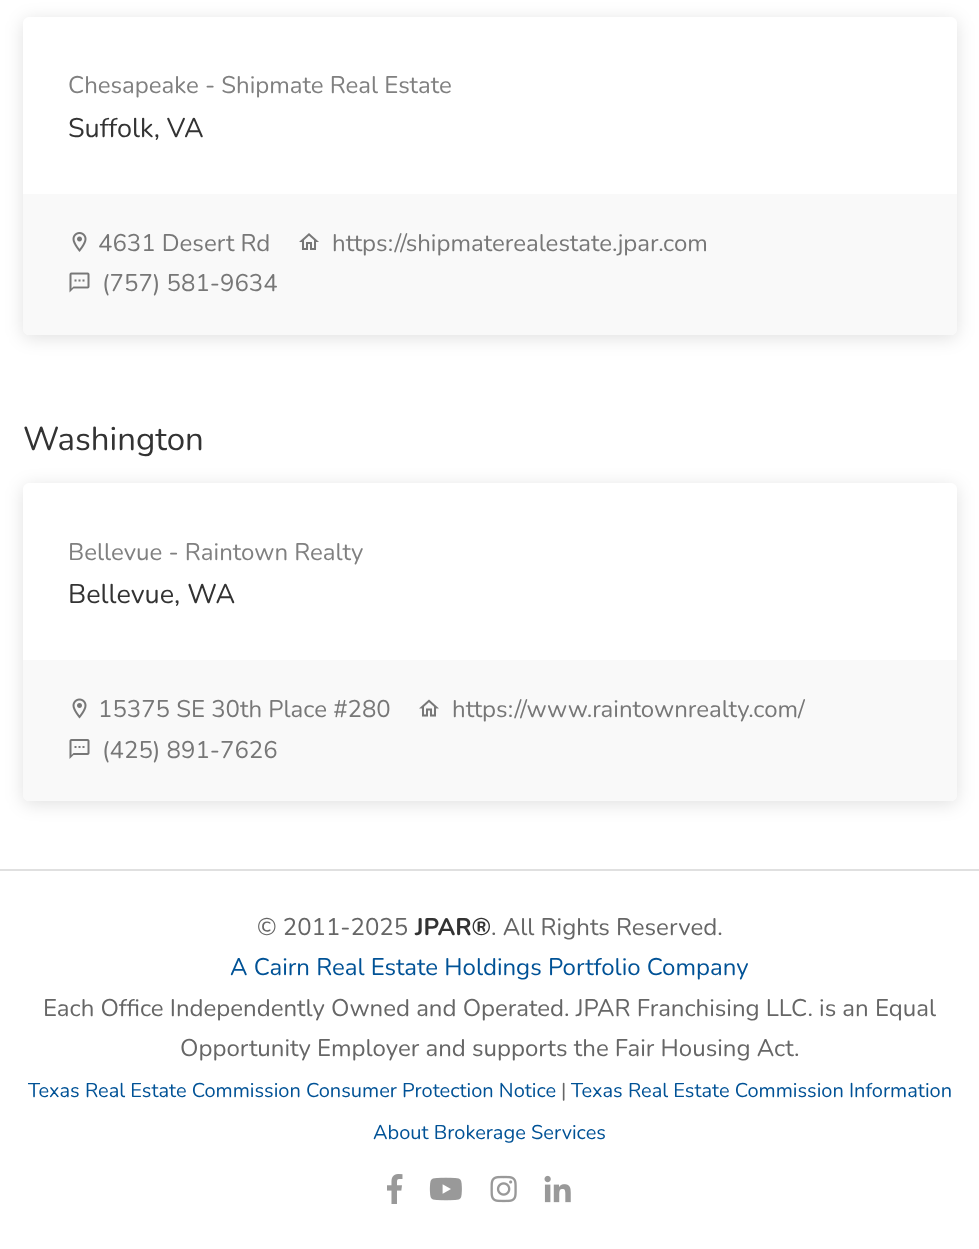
(async () => {
    const canvas = document.querySelector("canvas");
    canvas.width = 979;
    canvas.height = 1249;
    const context = canvas.getContext("2d");
    context.miterLimit = 4;
    context.fontKerning = "normal";
    function write(s, x, y, font, color) {
        context.font = font;
        context.fillStyle = color;
        context.fillText(s, x, y);
    }
    function block(x, y, w, h, color) {
        context.fillStyle = color;
        context.fillRect(x, y, w, h);
    }
    function card(x, y, w, h, r, color) {
        context.fillStyle = color;
        context.beginPath();
        context.roundRect(x, y, w, h, r);
        context.fill();
    }
    async function photo(src, x, y, w, h) {
        const img = new Image();
        img.src = src;
        await img.decode();
        context.drawImage(img, x, y, w, h);
    }

    block(0, 0, 979, 1249, "rgb(255, 255, 255)");
    context.fillStyle = "rgba(0, 0, 0, 0.12)";
    context.filter = "blur(9px)";
    context.beginPath();
    context.roundRect(23, 20, 934, 318, 6);
    context.fill();
    context.filter = "none";
    card(23, 17, 934, 318, 6, "rgb(255, 255, 255)");
    write("Chesapeake - Shipmate Real Estate", 68, 93, "24px Nunito", "rgb(128, 128, 128)");
    write("Suffolk, VA", 68, 137, "27px Nunito", "rgb(51, 51, 51)");
    context.fillStyle = "rgb(249, 249, 249)";
    context.beginPath();
    context.roundRect(23, 194, 934, 141, [0, 0, 6, 6]);
    context.fill();
    await photo("media/1.png", 72, 232, 15, 20);
    write("4631 Desert Rd", 98, 251, "24px Nunito", "rgb(119, 119, 119)");
    await photo("media/2.png", 299, 233, 20, 17);
    write("https://shipmaterealestate.jpar.com", 332, 251, "24px Nunito", "rgb(119, 119, 119)");
    await photo("media/3.png", 69, 272, 21, 21);
    write("(757) 581-9634", 102, 291, "24px Nunito", "rgb(119, 119, 119)");
    write("Washington", 23, 450, "33px Nunito", "rgb(51, 51, 51)");
    context.fillStyle = "rgba(0, 0, 0, 0.12)";
    context.filter = "blur(9px)";
    context.beginPath();
    context.roundRect(23, 486, 934, 318, 6);
    context.fill();
    context.filter = "none";
    card(23, 483, 934, 318, 6, "rgb(255, 255, 255)");
    write("Bellevue - Raintown Realty", 68, 560, "24px Nunito", "rgb(128, 128, 128)");
    write("Bellevue, WA", 68, 603, "27px Nunito", "rgb(51, 51, 51)");
    context.fillStyle = "rgb(249, 249, 249)";
    context.beginPath();
    context.roundRect(23, 660, 934, 141, [0, 0, 6, 6]);
    context.fill();
    await photo("media/4.png", 72, 698, 15, 21);
    write("15375 SE 30th Place #280", 98, 717, "24px Nunito", "rgb(119, 119, 119)");
    await photo("media/5.png", 419, 699, 20, 18);
    write("https://www.raintownrealty.com/", 452, 717, "24px Nunito", "rgb(119, 119, 119)");
    await photo("media/6.png", 69, 739, 21, 20);
    write("(425) 891-7626", 102, 758, "24px Nunito", "rgb(119, 119, 119)");
    block(0, 869, 979, 2, "rgb(224, 224, 224)");
    write("© 2011-2025", 257, 935, "24px Nunito", "rgb(102, 102, 102)");
    write("JPAR®", 415, 935, "bold 24px Nunito", "rgb(51, 51, 51)");
    write(". All Rights Reserved.", 491, 935, "24px Nunito", "rgb(102, 102, 102)");
    write("A Cairn Real Estate Holdings Portfolio Company", 230, 975, "24px Nunito", "rgb(0, 82, 150)");
    write("Each Office Independently Owned and Operated. JPAR Franchising LLC. is an Equal", 43, 1016, "24px Nunito", "rgb(102, 102, 102)");
    write("Opportunity Employer and supports the Fair Housing Act.", 180, 1056, "24px Nunito", "rgb(102, 102, 102)");
    write("Texas Real Estate Commission Consumer Protection Notice", 28, 1097, "20px Nunito", "rgb(0, 82, 150)");
    write("|", 561, 1097, "20px Nunito", "rgb(102, 102, 102)");
    write("Texas Real Estate Commission Information", 571, 1097, "20px Nunito", "rgb(0, 82, 150)");
    write("About Brokerage Services", 373, 1139, "20px Nunito", "rgb(0, 82, 150)");
    await photo("media/7.png", 387, 1174, 16, 30);
    await photo("media/8.png", 429, 1177, 33, 24);
    await photo("media/9.png", 490, 1175, 27, 28);
    await photo("media/10.png", 544, 1175, 27, 28);
})();
